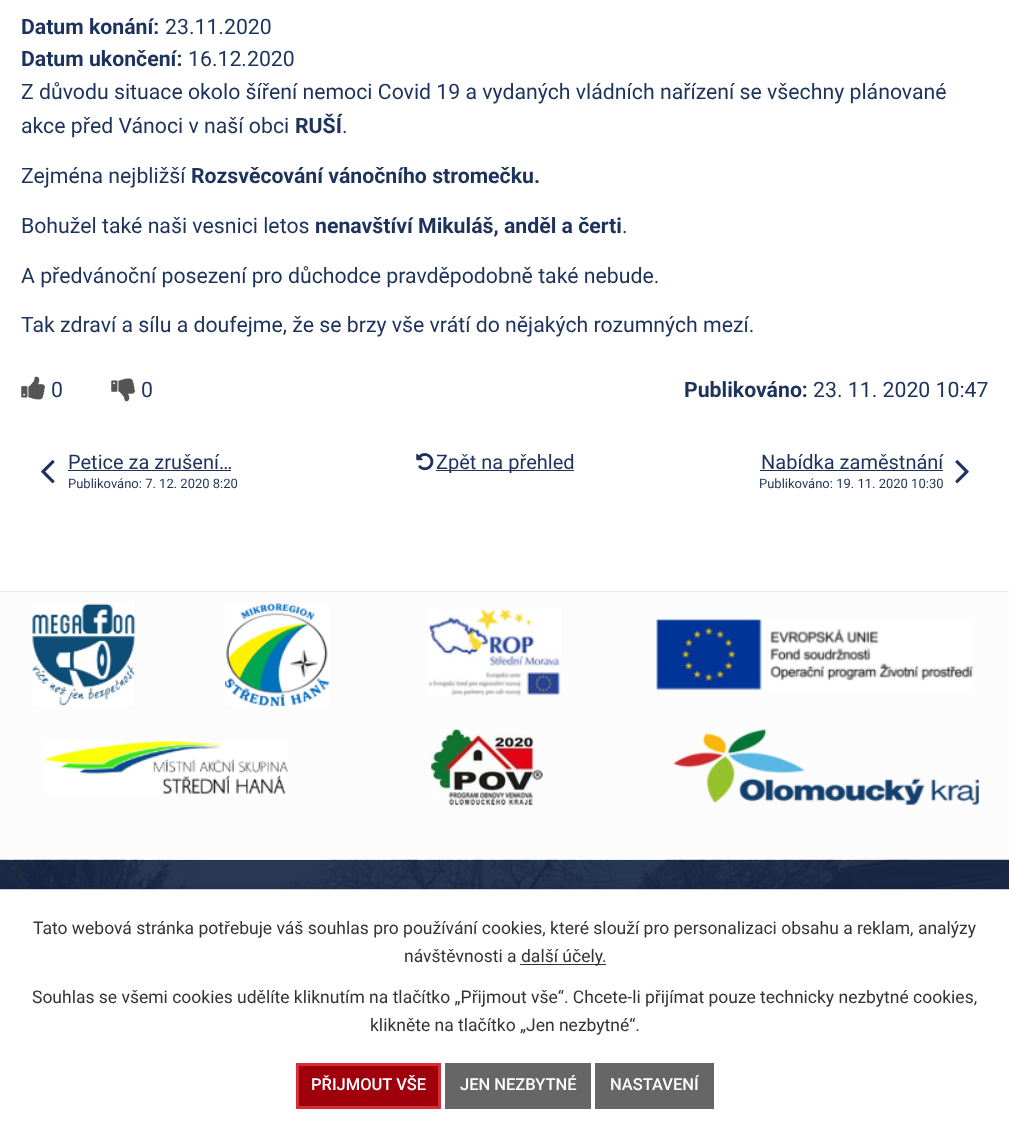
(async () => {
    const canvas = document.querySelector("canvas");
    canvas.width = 1009;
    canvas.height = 1131;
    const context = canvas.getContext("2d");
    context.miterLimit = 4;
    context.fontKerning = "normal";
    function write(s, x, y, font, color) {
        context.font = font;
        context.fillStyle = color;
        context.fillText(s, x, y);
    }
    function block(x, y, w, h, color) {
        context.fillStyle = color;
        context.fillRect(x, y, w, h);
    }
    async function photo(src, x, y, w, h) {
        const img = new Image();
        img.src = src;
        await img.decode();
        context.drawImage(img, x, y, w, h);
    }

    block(0, 0, 1009, 1131, "rgb(255, 255, 255)");
    write("Datum konání:", 21, 34, "bold 21.25px Roboto", "rgb(29, 51, 92)");
    write("23.11.2020", 165, 34, "21.25px Roboto", "rgb(29, 51, 92)");
    write("Datum ukončení:", 21, 66, "bold 21.25px Roboto", "rgb(29, 51, 92)");
    write("16.12.2020", 188, 66, "21.25px Roboto", "rgb(29, 51, 92)");
    write("Z důvodu situace okolo šíření nemoci Covid 19 a vydaných vládních nařízení se všechny plánované", 21, 99, "21.25px Roboto", "rgb(29, 51, 92)");
    write("akce před Vánoci v naší obci", 21, 133, "21.25px Roboto", "rgb(29, 51, 92)");
    write("RUŠÍ", 295, 133, "bold 21.25px Roboto", "rgb(29, 51, 92)");
    write(".", 342, 133, "21.25px Roboto", "rgb(29, 51, 92)");
    write("Zejména nejbližší", 21, 183, "21.25px Roboto", "rgb(29, 51, 92)");
    write("Rozsvěcování vánočního stromečku.", 191, 183, "bold 21.25px Roboto", "rgb(29, 51, 92)");
    write("Bohužel také naši vesnici letos", 21, 233, "21.25px Roboto", "rgb(29, 51, 92)");
    write("nenavštíví Mikuláš, anděl a čerti", 315, 233, "bold 21.25px Roboto", "rgb(29, 51, 92)");
    write(".", 622, 233, "21.25px Roboto", "rgb(29, 51, 92)");
    write("A předvánoční posezení pro důchodce pravděpodobně také nebude.", 21, 283, "21.25px Roboto", "rgb(29, 51, 92)");
    write("Tak zdraví a sílu a doufejme, že se brzy vše vrátí do nějakých rozumných mezí.", 21, 332, "21.25px Roboto", "rgb(29, 51, 92)");
    await photo("media/1.png", 21, 376, 24, 24);
    write("0", 51, 397, "21.25px Roboto", "rgb(29, 51, 92)");
    await photo("media/2.png", 111, 378, 24, 24);
    write("0", 141, 397, "21.25px Roboto", "rgb(29, 51, 92)");
    write("Publikováno:", 684, 397, "bold 21.25px Roboto", "rgb(29, 51, 92)");
    write("23. 11. 2020 10:47", 813, 397, "21.25px Roboto", "rgb(29, 51, 92)");
    await photo("media/3.png", 41, 460, 14, 24);
    write("Petice za zrušení…", 68, 469, "20px Roboto", "rgb(29, 51, 92)");
    block(68, 470, 163, 1, "rgb(29, 51, 92)");
    write("Publikováno: 7. 12. 2020 8:20", 68, 488, "13px Roboto", "rgb(29, 51, 92)");
    await photo("media/4.png", 416, 453, 18, 18);
    block(436, 470, 138, 1, "rgb(29, 51, 92)");
    write("Zpět na přehled", 436, 469, "20px Roboto", "rgb(29, 51, 92)");
    write("Nabídka zaměstnání", 761, 469, "20px Roboto", "rgb(29, 51, 92)");
    block(760, 470, 183, 1, "rgb(29, 51, 92)");
    write("Publikováno: 19. 11. 2020 10:30", 759, 488, "13px Roboto", "rgb(29, 51, 92)");
    await photo("media/5.png", 955, 460, 14, 24);
    block(0, 592, 1009, 268, "rgb(252, 252, 252)");
    block(0, 591, 1009, 1, "rgb(235, 235, 235)");
    await photo("media/6.png", 32, 603, 104, 103);
    await photo("media/7.png", 225, 603, 104, 103);
    await photo("media/8.png", 428, 608, 133, 88);
    await photo("media/9.png", 656, 618, 318, 73);
    await photo("media/10.png", 44, 740, 244, 54);
    await photo("media/11.png", 431, 729, 112, 76);
    await photo("media/12.png", 673, 729, 306, 76);
    await photo("media/13.png", 0, 859, 1009, 30);
    context.fillStyle = "rgba(0, 0, 0, 0.2)";
    context.filter = "blur(3px)";
    context.beginPath();
    context.rect(0, 889, 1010, 242);
    context.fill();
    context.filter = "none";
    block(0, 890, 1009, 241, "rgb(255, 255, 255)");
    block(0, 889, 1009, 1, "rgb(204, 204, 204)");
    write("Tato webová stránka potřebuje váš souhlas pro používání cookies, které slouží pro personalizaci obsahu a reklam, analýzy", 33, 934, "17.5px Roboto", "rgb(51, 51, 51)");
    write("návštěvnosti a", 404, 962, "17.5px Roboto", "rgb(51, 51, 51)");
    block(520, 964, 86, 1, "rgb(51, 51, 51)");
    write("další účely.", 521, 962, "17.5px Roboto", "rgb(51, 51, 51)");
    write("Souhlas se všemi cookies udělíte kliknutím na tlačítko „Přijmout vše“. Chcete-li přijímat pouze technicky nezbytné cookies,", 32, 1003, "17.5px Roboto", "rgb(51, 51, 51)");
    write("klikněte na tlačítko „Jen nezbytné“.", 370, 1031, "17.5px Roboto", "rgb(51, 51, 51)");
    context.fillStyle = "rgb(159, 0, 11)";
    context.beginPath();
    context.rect(297.5, 1064.5, 142, 43);
    context.fill();
    context.strokeStyle = "rgb(213, 46, 57)";
    context.lineWidth = 3;
    context.stroke();
    write("PŘIJMOUT VŠE", 311, 1090, "500 16.5px Roboto", "rgb(255, 255, 255)");
    block(445, 1063, 146, 46, "rgb(102, 102, 102)");
    write("JEN NEZBYTNÉ", 460, 1090, "500 16.5px Roboto", "rgb(255, 255, 255)");
    block(595, 1063, 119, 46, "rgb(102, 102, 102)");
    write("NASTAVENÍ", 610, 1090, "500 16.5px Roboto", "rgb(255, 255, 255)");
})();
